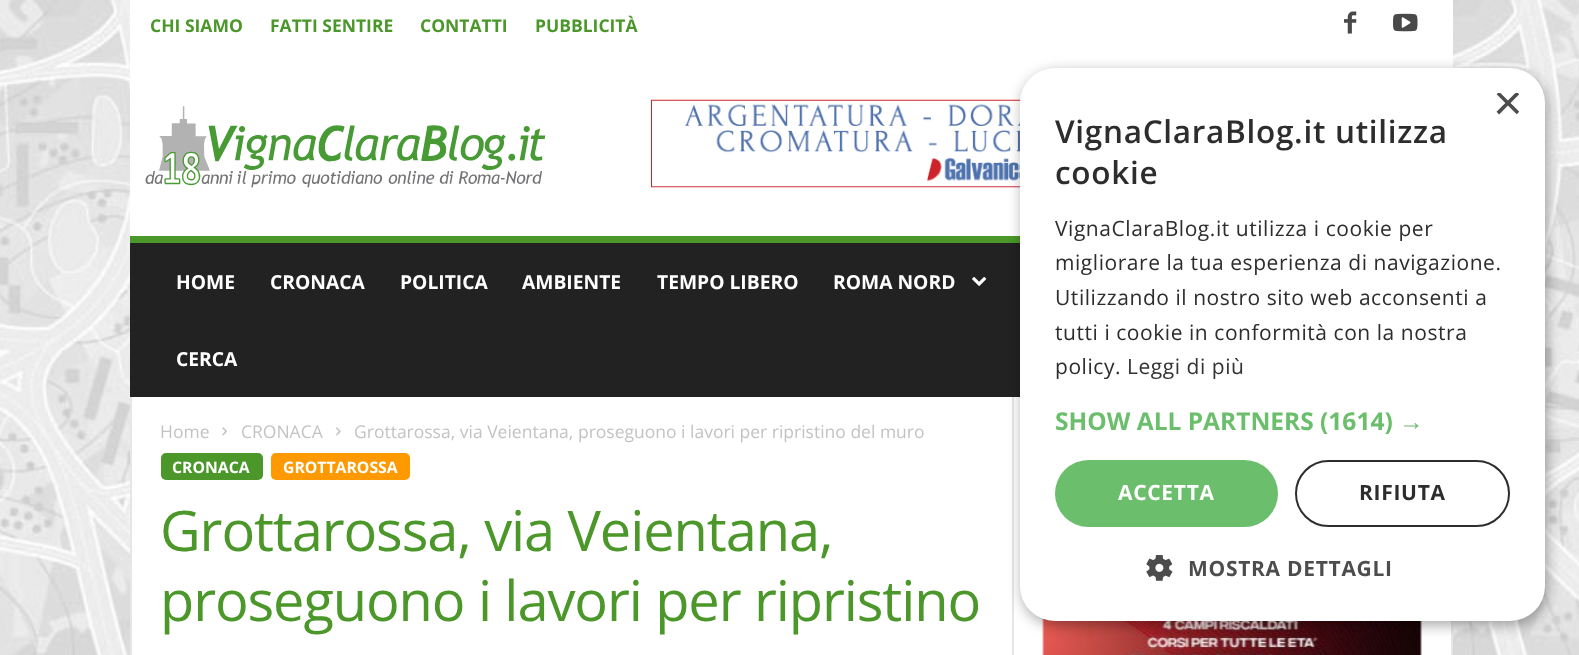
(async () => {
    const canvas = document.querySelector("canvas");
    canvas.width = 1579;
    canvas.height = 655;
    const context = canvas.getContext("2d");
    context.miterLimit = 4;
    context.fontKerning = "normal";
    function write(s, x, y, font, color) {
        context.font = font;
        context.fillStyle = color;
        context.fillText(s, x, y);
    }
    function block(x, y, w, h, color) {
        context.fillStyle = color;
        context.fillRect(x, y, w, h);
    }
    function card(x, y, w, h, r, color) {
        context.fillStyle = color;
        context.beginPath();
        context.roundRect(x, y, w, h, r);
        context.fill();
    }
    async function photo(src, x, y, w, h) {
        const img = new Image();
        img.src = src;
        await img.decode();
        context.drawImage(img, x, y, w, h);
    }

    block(0, 0, 1579, 655, "rgb(255, 255, 255)");
    await photo("media/1.png", 0, 0, 1579, 655);
    block(130, 0, 1323, 236, "rgb(255, 255, 255)");
    await photo("media/2.png", 145, 106, 401, 82);
    await photo("media/3.png", 651, 99, 370, 89);
    write("CHI SIAMO", 150, 32, "bold 17.5px Open Sans", "rgb(75, 151, 42)");
    write("FATTI SENTIRE", 270, 32, "bold 17.5px Open Sans", "rgb(75, 151, 42)");
    write("CONTATTI", 420, 32, "bold 17.5px Open Sans", "rgb(75, 151, 42)");
    write("PUBBLICITÀ", 535, 32, "bold 17.5px Open Sans", "rgb(75, 151, 42)");
    await photo("media/4.png", 1344, 11, 13, 23);
    await photo("media/5.png", 1393, 13, 25, 19);
    block(130, 243, 890, 154, "rgb(34, 34, 34)");
    block(130, 236, 890, 7, "rgb(75, 151, 42)");
    write("HOME", 176, 289, "bold 19.25px Open Sans", "rgb(255, 255, 255)");
    write("CRONACA", 270, 289, "bold 19.25px Open Sans", "rgb(255, 255, 255)");
    write("POLITICA", 400, 289, "bold 19.25px Open Sans", "rgb(255, 255, 255)");
    write("AMBIENTE", 522, 289, "bold 19.25px Open Sans", "rgb(255, 255, 255)");
    write("TEMPO LIBERO", 657, 289, "bold 19.25px Open Sans", "rgb(255, 255, 255)");
    write("ROMA NORD", 833, 289, "bold 19.25px Open Sans", "rgb(255, 255, 255)");
    await photo("media/6.png", 972, 277, 15, 9);
    write("CERCA", 176, 366, "bold 19.25px Open Sans", "rgb(255, 255, 255)");
    block(132, 397, 1319, 258, "rgb(255, 255, 255)");
    block(130, 397, 2, 258, "rgb(230, 230, 230)");
    write("Home", 160, 438, "17.5px Open Sans", "rgb(195, 195, 195)");
    await photo("media/7.png", 222, 427, 5, 9);
    write("CRONACA", 241, 438, "17.5px Open Sans", "rgb(195, 195, 195)");
    await photo("media/8.png", 336, 427, 5, 9);
    write("Grottarossa, via Veientana, proseguono i lavori per ripristino del muro", 354, 438, "17.5px Open Sans", "rgb(195, 195, 195)");
    card(161, 453, 102, 27, 5, "rgb(75, 151, 42)");
    write("CRONACA", 172, 473, "bold 15.75px Open Sans", "rgb(255, 255, 255)");
    card(271, 453, 139, 27, 5, "rgb(255, 153, 0)");
    write("GROTTAROSSA", 283, 473, "bold 15.75px Open Sans", "rgb(255, 255, 255)");
    context.letterSpacing = "-1.1px";
    write("Grottarossa, via Veientana,", 160, 551, "56px Open Sans", "rgb(75, 151, 42)");
    write("proseguono i lavori per ripristino", 160, 621, "56px Open Sans", "rgb(75, 151, 42)");
    block(1012, 397, 2, 258, "rgb(230, 230, 230)");
    await photo("media/9.png", 1042, 618, 380, 37);
    block(1451, 621, 2, 34, "rgb(230, 230, 230)");
    context.fillStyle = "rgba(0, 0, 0, 0.35)";
    context.filter = "blur(7px)";
    context.beginPath();
    context.roundRect(1022, 72, 525, 553, 35);
    context.fill();
    context.filter = "none";
    card(1020, 68, 525, 553, 35, "rgb(255, 255, 255)");
    context.save();
    context.beginPath();
    context.rect(1493, 93, 26, 26);
    context.clip();
    context.letterSpacing = "0px";
    write("×", 1493, 120, "51px Liberation Sans", "rgb(77, 77, 77)");
    context.restore();
    context.letterSpacing = "0.7px";
    write("VignaClaraBlog.it utilizza", 1055, 143, "600 31.5px Open Sans", "rgb(45, 45, 45)");
    write("cookie", 1055, 184, "600 31.5px Open Sans", "rgb(45, 45, 45)");
    context.letterSpacing = "0.55px";
    write("VignaClaraBlog.it utilizza i cookie per", 1055, 236, "21px Open Sans", "rgb(45, 45, 45)");
    write("migliorare la tua esperienza di navigazione.", 1055, 270, "21px Open Sans", "rgb(45, 45, 45)");
    write("Utilizzando il nostro sito web acconsenti a", 1055, 305, "21px Open Sans", "rgb(45, 45, 45)");
    write("tutti i cookie in conformità con la nostra", 1055, 340, "21px Open Sans", "rgb(45, 45, 45)");
    write("policy.", 1055, 374, "21px Open Sans", "rgb(45, 45, 45)");
    write("Leggi di più", 1127, 374, "21px Open Sans", "rgb(51, 51, 51)");
    context.letterSpacing = "0px";
    write("SHOW ALL PARTNERS (1614)", 1055, 430, "bold 24.5px Open Sans", "rgb(107, 190, 107)");
    write("→", 1399, 430, "bold 24.5px Liberation Sans", "rgb(107, 190, 107)");
    card(1055, 460, 223, 67, 33.5, "rgb(107, 190, 107)");
    context.letterSpacing = "0.7px";
    write("ACCETTA", 1118, 500, "bold 21px Open Sans", "rgb(255, 255, 255)");
    context.beginPath();
    context.roundRect(1296, 461, 213, 65, 32.5);
    context.strokeStyle = "rgb(45, 45, 45)";
    context.lineWidth = 2;
    context.stroke();
    write("RIFIUTA", 1359, 500, "bold 21px Open Sans", "rgb(45, 45, 45)");
    await photo("media/10.png", 1146, 555, 27, 26);
    write("MOSTRA DETTAGLI", 1188, 576, "bold 21px Open Sans", "rgb(77, 77, 77)");
})();
